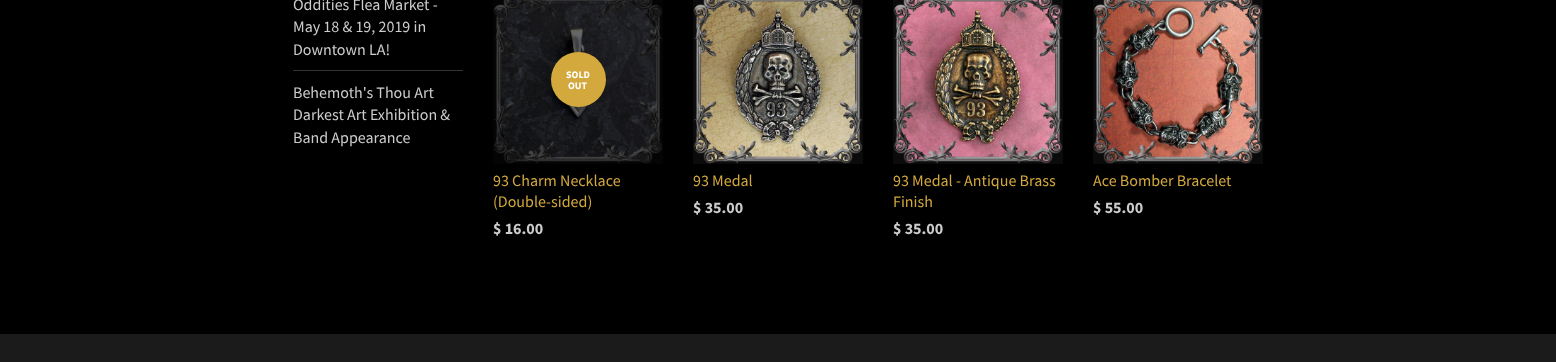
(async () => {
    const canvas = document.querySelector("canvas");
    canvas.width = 1556;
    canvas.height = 362;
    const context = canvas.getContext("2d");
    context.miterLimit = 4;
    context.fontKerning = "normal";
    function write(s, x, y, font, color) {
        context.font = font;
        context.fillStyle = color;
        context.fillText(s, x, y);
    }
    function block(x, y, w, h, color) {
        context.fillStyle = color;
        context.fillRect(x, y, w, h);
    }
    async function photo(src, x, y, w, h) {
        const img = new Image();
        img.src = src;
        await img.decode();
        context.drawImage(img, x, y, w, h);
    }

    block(0, 0, 1556, 362, "rgb(0, 0, 0)");
    write("Oddities Flea Market -", 293, 10, "16px Source Sans Pro", "rgb(204, 204, 204)");
    write("May 18 & 19, 2019 in", 293, 32, "16px Source Sans Pro", "rgb(204, 204, 204)");
    write("Downtown LA!", 293, 55, "16px Source Sans Pro", "rgb(204, 204, 204)");
    block(293, 70, 170, 1, "rgb(52, 52, 52)");
    write("Behemoth's Thou Art", 293, 98, "16px Source Sans Pro", "rgb(204, 204, 204)");
    write("Darkest Art Exhibition &", 293, 120, "16px Source Sans Pro", "rgb(204, 204, 204)");
    write("Band Appearance", 293, 143, "16px Source Sans Pro", "rgb(204, 204, 204)");
    await photo("media/1.png", 493, 0, 170, 164);
    context.fillStyle = "rgb(211, 169, 62)";
    context.beginPath();
    context.arc(578.5, 79.5, 27.5, 0, Math.PI * 2);
    context.fill();
    write("SOLD", 566, 78, "bold 10px Source Sans Pro", "rgb(255, 255, 255)");
    write("OUT", 568, 89, "bold 10px Source Sans Pro", "rgb(255, 255, 255)");
    write("93 Charm Necklace", 493, 186, "16px Source Sans Pro", "rgb(211, 169, 62)");
    write("(Double-sided)", 493, 207, "16px Source Sans Pro", "rgb(211, 169, 62)");
    write("$ 16.00", 493, 234, "bold 16px Source Sans Pro", "rgb(204, 204, 204)");
    await photo("media/2.png", 693, 0, 170, 164);
    write("93 Medal", 693, 186, "16px Source Sans Pro", "rgb(211, 169, 62)");
    write("$ 35.00", 693, 213, "bold 16px Source Sans Pro", "rgb(204, 204, 204)");
    await photo("media/3.png", 893, 0, 170, 164);
    write("93 Medal - Antique Brass", 893, 186, "16px Source Sans Pro", "rgb(211, 169, 62)");
    write("Finish", 893, 207, "16px Source Sans Pro", "rgb(211, 169, 62)");
    write("$ 35.00", 893, 234, "bold 16px Source Sans Pro", "rgb(204, 204, 204)");
    await photo("media/4.png", 1093, 0, 170, 164);
    write("Ace Bomber Bracelet", 1093, 186, "16px Source Sans Pro", "rgb(211, 169, 62)");
    write("$ 55.00", 1093, 213, "bold 16px Source Sans Pro", "rgb(204, 204, 204)");
    block(0, 334, 1556, 28, "rgb(27, 27, 27)");
})();
